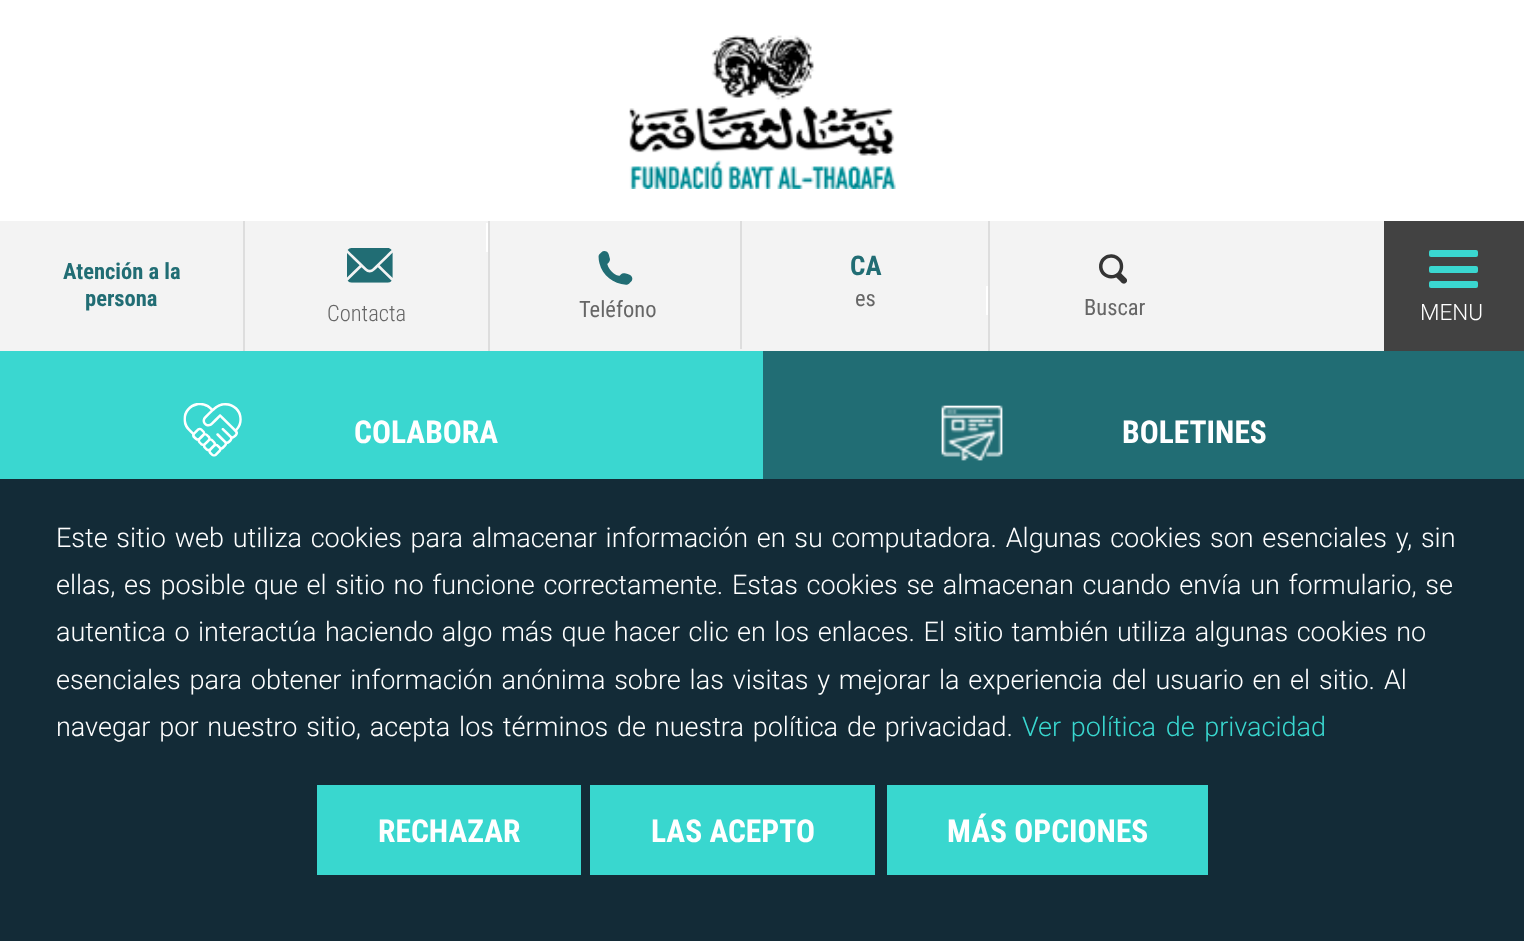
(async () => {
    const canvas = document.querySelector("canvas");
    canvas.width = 1524;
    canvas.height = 941;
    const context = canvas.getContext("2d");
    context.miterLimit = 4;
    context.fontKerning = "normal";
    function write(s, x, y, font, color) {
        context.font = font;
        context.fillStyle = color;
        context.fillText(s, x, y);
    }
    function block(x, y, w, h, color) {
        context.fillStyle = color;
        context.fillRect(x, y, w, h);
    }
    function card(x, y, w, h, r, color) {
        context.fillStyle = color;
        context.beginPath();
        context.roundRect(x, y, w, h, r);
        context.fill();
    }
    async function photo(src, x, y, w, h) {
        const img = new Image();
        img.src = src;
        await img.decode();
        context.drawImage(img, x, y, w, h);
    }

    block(0, 0, 1524, 941, "rgb(255, 255, 255)");
    block(0, 221, 1384, 130, "rgb(243, 243, 243)");
    block(243, 221, 2, 130, "rgb(221, 221, 221)");
    write("Atención a la", 63, 279, "bold 22.5px Roboto Condensed", "rgb(33, 109, 116)");
    write("persona", 85, 306, "bold 22.5px Roboto Condensed", "rgb(33, 109, 116)");
    block(488, 221, 2, 130, "rgb(221, 221, 221)");
    block(486, 223, 2, 29, "rgb(255, 255, 255)");
    await photo("media/1.png", 347, 248, 46, 35);
    write("Contacta", 327, 321, "300 22.5px Roboto Condensed", "rgb(102, 102, 102)");
    block(740, 221, 2, 128, "rgb(221, 221, 221)");
    await photo("media/2.png", 598, 251, 35, 34);
    write("Teléfono", 579, 317, "22.5px Roboto Condensed", "rgb(102, 102, 102)");
    block(988, 221, 2, 130, "rgb(221, 221, 221)");
    write("CA", 850, 275, "bold 27px Roboto Condensed", "rgb(33, 109, 116)");
    write("es", 855, 306, "22.5px Roboto Condensed", "rgb(102, 102, 102)");
    block(986, 286, 2, 29, "rgb(255, 255, 255)");
    await photo("media/3.png", 1099, 254, 28, 30);
    write("Buscar", 1084, 315, "22.5px Roboto Condensed", "rgb(102, 102, 102)");
    await photo("media/4.png", 629, 35, 267, 154);
    block(1384, 221, 140, 130, "rgb(66, 66, 66)");
    card(1429, 250, 49, 7, 2, "rgb(58, 215, 208)");
    card(1429, 266, 49, 7, 2, "rgb(58, 215, 208)");
    card(1429, 281, 49, 7, 2, "rgb(58, 215, 208)");
    write("MENU", 1420, 320, "300 22.5px Roboto", "rgb(255, 255, 255)");
    block(0, 351, 763, 128, "rgb(58, 215, 208)");
    await photo("media/5.png", 183, 403, 59, 54);
    write("COLABORA", 354, 443, "bold 31.5px Roboto Condensed", "rgb(255, 255, 255)");
    block(763, 351, 761, 128, "rgb(33, 109, 116)");
    await photo("media/6.png", 941, 405, 62, 56);
    write("BOLETINES", 1122, 443, "bold 31.5px Roboto Condensed", "rgb(255, 255, 255)");
    block(0, 479, 1524, 462, "rgb(19, 43, 55)");
    context.wordSpacing = "2.1px";
    write("Este sitio web utiliza cookies para almacenar información en su computadora. Algunas cookies son esenciales y, sin", 56, 547, "300 27px Roboto", "rgb(255, 255, 255)");
    write("ellas, es posible que el sitio no funcione correctamente. Estas cookies se almacenan cuando envía un formulario, se", 56, 594, "300 27px Roboto", "rgb(255, 255, 255)");
    context.wordSpacing = "1.9px";
    write("autentica o interactúa haciendo algo más que hacer clic en los enlaces. El sitio también utiliza algunas cookies no", 56, 641, "300 27px Roboto", "rgb(255, 255, 255)");
    context.wordSpacing = "2.25px";
    write("esenciales para obtener información anónima sobre las visitas y mejorar la experiencia del usuario en el sitio. Al", 56, 689, "300 27px Roboto", "rgb(255, 255, 255)");
    write("navegar por nuestro sitio, acepta los términos de nuestra política de privacidad.", 56, 736, "300 27px Roboto", "rgb(255, 255, 255)");
    context.wordSpacing = "3px";
    write("Ver política de privacidad", 1022, 736, "300 27px Roboto", "rgb(57, 215, 207)");
    block(317, 785, 264, 90, "rgb(57, 215, 207)");
    context.wordSpacing = "0px";
    write("RECHAZAR", 378, 842, "bold 31.5px Roboto Condensed", "rgb(255, 255, 255)");
    block(590, 785, 285, 90, "rgb(57, 215, 207)");
    write("LAS ACEPTO", 651, 842, "bold 31.5px Roboto Condensed", "rgb(255, 255, 255)");
    block(887, 785, 321, 90, "rgb(57, 215, 207)");
    write("MÁS OPCIONES", 947, 842, "bold 31.5px Roboto Condensed", "rgb(255, 255, 255)");
})();
